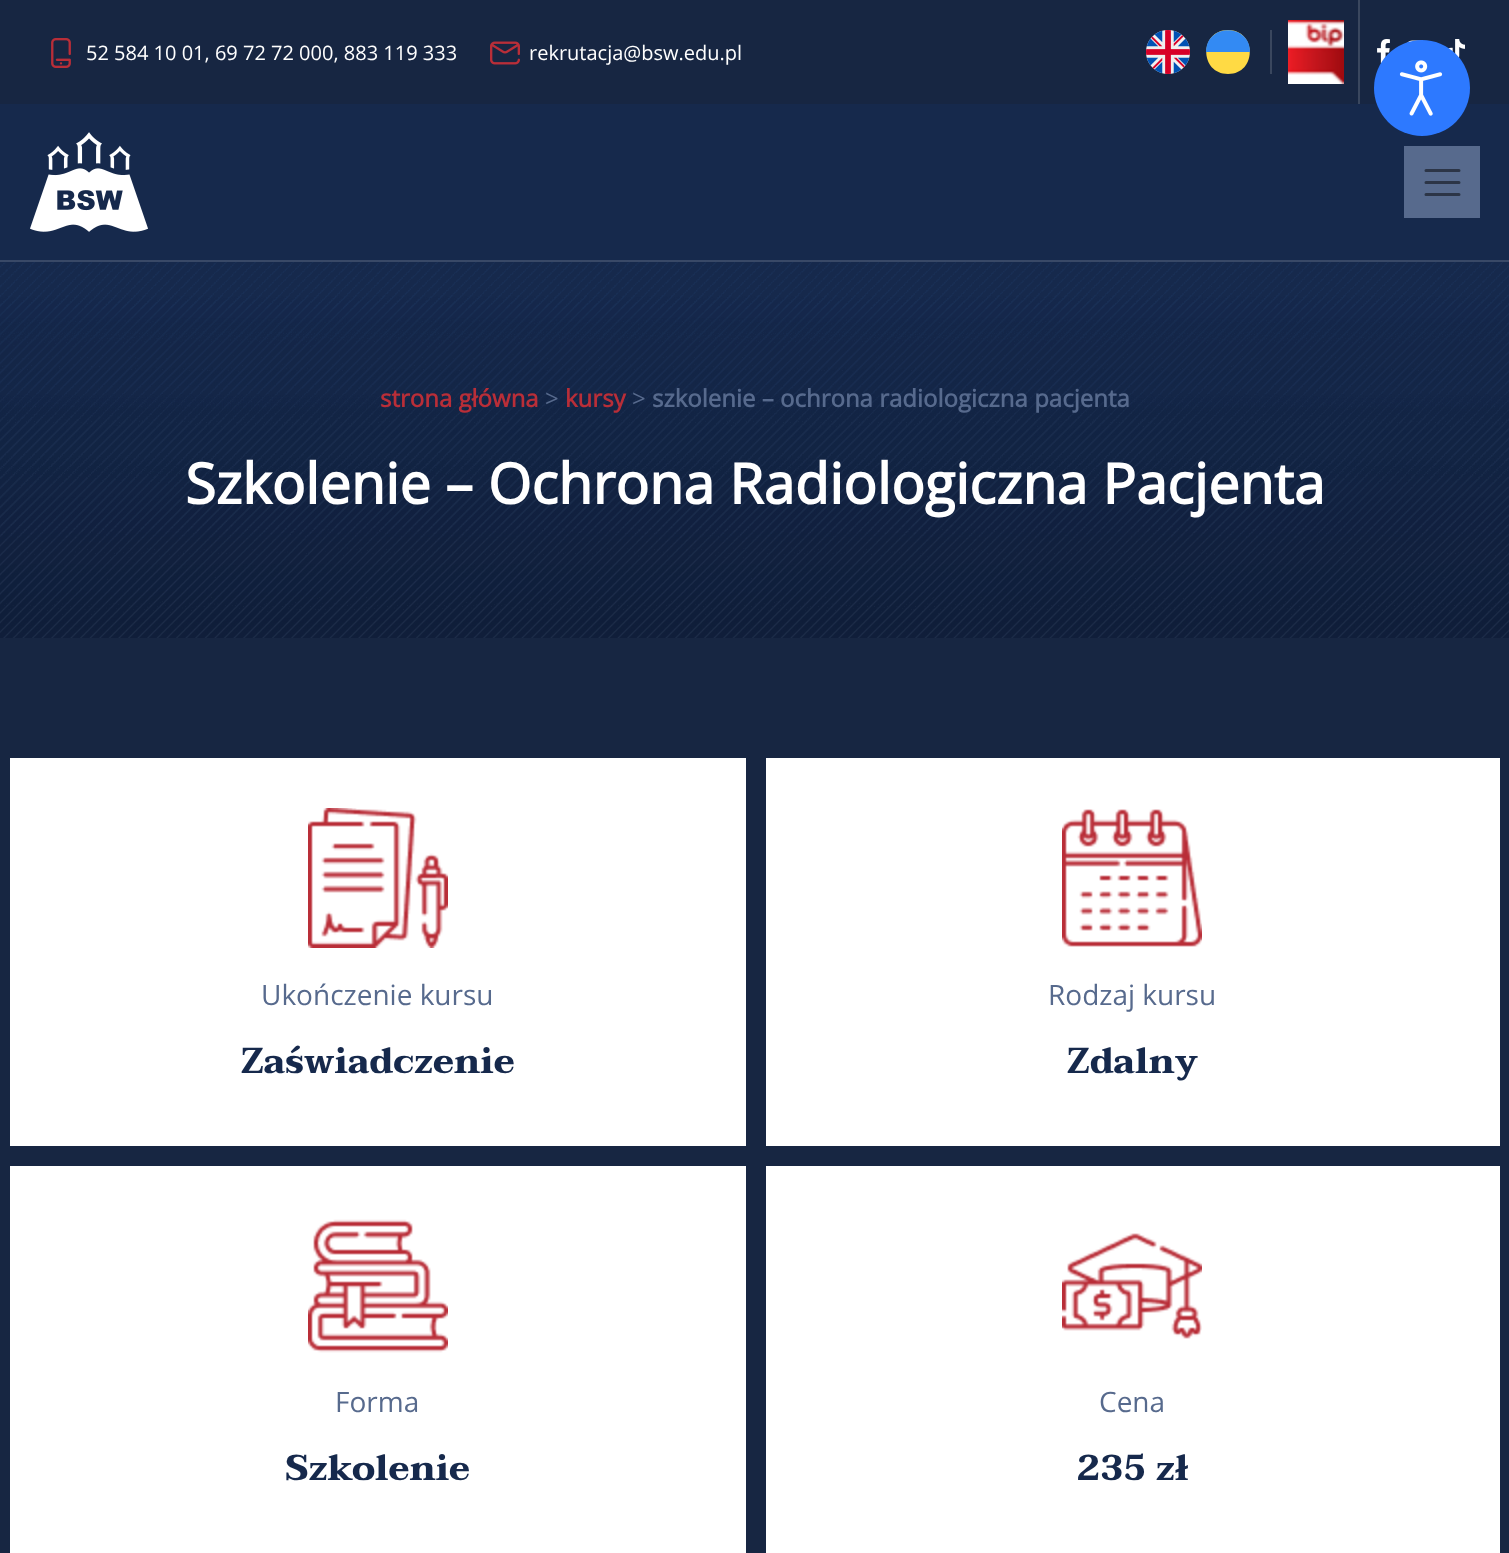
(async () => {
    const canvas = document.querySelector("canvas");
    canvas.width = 1509;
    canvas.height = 1553;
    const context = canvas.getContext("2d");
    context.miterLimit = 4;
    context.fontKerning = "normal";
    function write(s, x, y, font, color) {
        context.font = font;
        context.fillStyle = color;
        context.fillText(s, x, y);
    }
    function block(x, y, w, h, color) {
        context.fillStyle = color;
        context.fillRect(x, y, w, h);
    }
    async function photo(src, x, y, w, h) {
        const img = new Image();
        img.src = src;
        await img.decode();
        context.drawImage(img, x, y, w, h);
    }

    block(0, 0, 1509, 1553, "rgb(22, 41, 76)");
    block(0, 0, 1509, 104, "rgb(23, 38, 66)");
    await photo("media/1.png", 51, 38, 20, 30);
    write("52 584 10 01, 69 72 72 000, 883 119 333", 86, 60, "20px Open Sans", "rgb(255, 255, 255)");
    await photo("media/2.png", 490, 41, 30, 24);
    write("rekrutacja@bsw.edu.pl", 529, 60, "20px Open Sans", "rgb(255, 255, 255)");
    await photo("media/3.png", 1146, 30, 44, 44);
    context.fillStyle = "rgb(255, 218, 68)";
    context.beginPath();
    context.moveTo(1228, 74);
    context.bezierCurveTo(1257, 74, 1257, 30, 1228, 30);
    context.bezierCurveTo(1199, 30, 1199, 74, 1228, 74);
    context.closePath();
    context.fill();
    context.fillStyle = "rgb(51, 138, 243)";
    context.beginPath();
    context.moveTo(1206, 52);
    context.bezierCurveTo(1206, 23, 1250, 23, 1250, 52);
    context.fill();
    block(1270, 30, 2, 44, "rgb(58, 71, 94)");
    await photo("media/4.png", 1288, 20, 56, 64);
    block(1358, 0, 2, 104, "rgb(58, 71, 94)");
    await photo("media/5.png", 1377, 39, 13, 24);
    await photo("media/6.png", 1407, 40, 16, 3);
    await photo("media/7.png", 1448, 39, 17, 19);
    block(0, 260, 1509, 2, "rgb(57, 73, 103)");
    await photo("media/8.png", 30, 132, 118, 100);
    block(1404, 146, 76, 72, "rgb(87, 106, 141)");
    context.beginPath();
    context.moveTo(1426, 170.5);
    context.lineTo(1459, 170.5);
    context.moveTo(1426, 182.5);
    context.lineTo(1459, 182.5);
    context.moveTo(1426, 194.5);
    context.lineTo(1459, 194.5);
    context.strokeStyle = "rgb(44, 53, 71)";
    context.lineWidth = 3;
    context.lineCap = "round";
    context.stroke();
    block(0, 295, 1509, 1258, "rgb(23, 38, 66)");
    await photo("media/9.png", 0, 262, 1509, 376);
    write("strona główna", 380, 407, "bold 24px Open Sans", "rgb(185, 46, 56)");
    write(">", 545, 407, "24px Open Sans", "rgb(87, 106, 141)");
    write("kursy", 565, 407, "bold 24px Open Sans", "rgb(185, 46, 56)");
    write(">", 632, 407, "24px Open Sans", "rgb(87, 106, 141)");
    write("szkolenie – ochrona radiologiczna pacjenta", 652, 407, "bold 24px Open Sans", "rgb(87, 106, 141)");
    write("Szkolenie – Ochrona Radiologiczna Pacjenta", 185, 504, "bold 56px Open Sans", "rgb(255, 255, 255)");
    block(10, 758, 736, 388, "rgb(255, 255, 255)");
    await photo("media/10.png", 308, 808, 140, 140);
    write("Ukończenie kursu", 261, 1005, "28px Open Sans", "rgb(87, 106, 141)");
    write("Zaświadczenie", 241, 1073, "bold 36px Taviraj", "rgb(22, 41, 76)");
    block(766, 758, 734, 388, "rgb(255, 255, 255)");
    await photo("media/11.png", 1062, 809, 140, 138);
    write("Rodzaj kursu", 1048, 1005, "28px Open Sans", "rgb(87, 106, 141)");
    write("Zdalny", 1067, 1073, "bold 36px Taviraj", "rgb(22, 41, 76)");
    block(10, 1166, 736, 387, "rgb(255, 255, 255)");
    await photo("media/12.png", 308, 1219, 140, 134);
    write("Forma", 335, 1412, "28px Open Sans", "rgb(87, 106, 141)");
    write("Szkolenie", 285, 1480, "bold 36px Taviraj", "rgb(22, 41, 76)");
    block(766, 1166, 734, 387, "rgb(255, 255, 255)");
    await photo("media/13.png", 1062, 1233, 140, 106);
    write("Cena", 1099, 1412, "28px Open Sans", "rgb(87, 106, 141)");
    write("235 zł", 1077, 1480, "bold 36px Taviraj", "rgb(22, 41, 76)");
    context.fillStyle = "rgb(45, 121, 255)";
    context.beginPath();
    context.arc(1422, 88, 48, 0, Math.PI * 2);
    context.fill();
    await photo("media/14.png", 1399, 60, 44, 56);
})();
